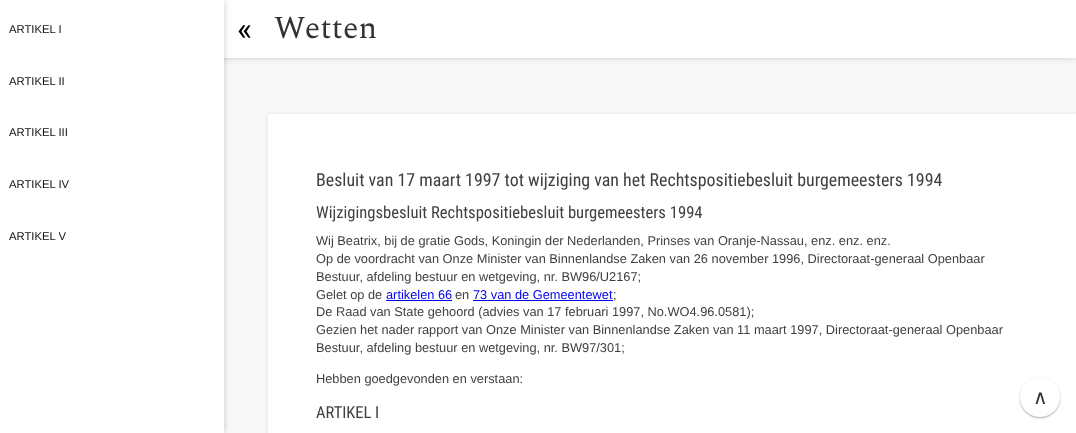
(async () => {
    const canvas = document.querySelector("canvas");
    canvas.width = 1076;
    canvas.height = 433;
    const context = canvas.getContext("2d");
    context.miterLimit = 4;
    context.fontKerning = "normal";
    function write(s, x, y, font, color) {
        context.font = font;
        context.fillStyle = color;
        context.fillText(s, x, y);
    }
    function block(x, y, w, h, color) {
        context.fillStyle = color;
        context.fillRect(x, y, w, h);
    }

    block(0, 0, 1076, 433, "rgb(248, 248, 248)");
    context.fillStyle = "rgba(0, 0, 0, 0.3)";
    context.filter = "blur(4px)";
    context.beginPath();
    context.rect(0, -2, 1076, 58);
    context.fill();
    context.filter = "none";
    block(224, 0, 852, 58, "rgb(255, 255, 255)");
    context.fillStyle = "rgba(0, 0, 0, 0.2)";
    context.filter = "blur(3px)";
    context.beginPath();
    context.rect(0, 0, 224, 433);
    context.fill();
    context.filter = "none";
    block(0, 0, 224, 433, "rgb(255, 255, 255)");
    write("ARTIKEL I", 9, 33, "11.25px Liberation Sans", "rgb(16, 16, 16)");
    write("ARTIKEL II", 9, 85, "11.25px Liberation Sans", "rgb(16, 16, 16)");
    write("ARTIKEL III", 9, 136, "11.25px Liberation Sans", "rgb(16, 16, 16)");
    write("ARTIKEL IV", 9, 188, "11.25px Liberation Sans", "rgb(16, 16, 16)");
    write("ARTIKEL V", 9, 240, "11.25px Liberation Sans", "rgb(16, 16, 16)");
    write("«", 237, 40, "32px Roboto", "rgb(0, 0, 0)");
    write("Wetten", 274, 38, "32px Spectral", "rgb(51, 51, 51)");
    context.fillStyle = "rgba(0, 0, 0, 0.1)";
    context.filter = "blur(2px)";
    context.beginPath();
    context.rect(268, 114, 808, 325);
    context.fill();
    context.filter = "none";
    block(268, 114, 808, 319, "rgb(255, 255, 255)");
    write("Besluit van 17 maart 1997 tot wijziging van het Rechtspositiebesluit burgemeesters 1994", 316, 186, "17.9px Roboto Condensed", "rgb(64, 64, 64)");
    write("Wijzigingsbesluit Rechtspositiebesluit burgemeesters 1994", 316, 218, "16.6px Roboto Condensed", "rgb(64, 64, 64)");
    write("Wij Beatrix, bij de gratie Gods, Koningin der Nederlanden, Prinses van Oranje-Nassau, enz. enz. enz.", 316, 245, "12.8px Liberation Sans", "rgb(64, 64, 64)");
    write("Op de voordracht van Onze Minister van Binnenlandse Zaken van 26 november 1996, Directoraat-generaal Openbaar", 316, 263, "12.8px Liberation Sans", "rgb(64, 64, 64)");
    write("Bestuur, afdeling bestuur en wetgeving, nr. BW96/U2167;", 316, 281, "12.8px Liberation Sans", "rgb(64, 64, 64)");
    write("Gelet op de", 316, 299, "12.8px Liberation Sans", "rgb(64, 64, 64)");
    write("artikelen 66", 386, 299, "12.8px Liberation Sans", "rgb(0, 0, 238)");
    block(386, 300, 66, 1, "rgb(0, 0, 238)");
    write("en", 455, 299, "12.8px Liberation Sans", "rgb(64, 64, 64)");
    write("73 van de Gemeentewet", 473, 299, "12.8px Liberation Sans", "rgb(0, 0, 238)");
    block(473, 300, 140, 1, "rgb(0, 0, 238)");
    write(";", 613, 299, "12.8px Liberation Sans", "rgb(64, 64, 64)");
    write("De Raad van State gehoord (advies van 17 februari 1997, No.WO4.96.0581);", 316, 316, "12.8px Liberation Sans", "rgb(64, 64, 64)");
    write("Gezien het nader rapport van Onze Minister van Binnenlandse Zaken van 11 maart 1997, Directoraat-generaal Openbaar", 316, 334, "12.8px Liberation Sans", "rgb(64, 64, 64)");
    write("Bestuur, afdeling bestuur en wetgeving, nr. BW97/301;", 316, 352, "12.8px Liberation Sans", "rgb(64, 64, 64)");
    write("Hebben goedgevonden en verstaan:", 316, 383, "12.8px Liberation Sans", "rgb(64, 64, 64)");
    write("ARTIKEL", 316, 418, "16.5px Roboto Condensed", "rgb(64, 64, 64)");
    write("I", 375, 418, "16.5px Roboto Condensed", "rgb(64, 64, 64)");
    context.fillStyle = "rgba(0, 0, 0, 0.12)";
    context.filter = "blur(0.5px)";
    context.beginPath();
    context.roundRect(1020, 378, 40, 40, 20);
    context.fill();
    context.filter = "none";
    context.fillStyle = "rgba(0, 0, 0, 0.24)";
    context.filter = "blur(1px)";
    context.beginPath();
    context.roundRect(1020, 378, 40, 40, 20);
    context.fill();
    context.filter = "none";
    context.fillStyle = "rgb(255, 255, 255)";
    context.beginPath();
    context.arc(1040, 397, 20, 0, Math.PI * 2);
    context.fill();
    write("∧", 1033, 404, "20px DejaVu Sans", "rgb(51, 51, 51)");
})();
